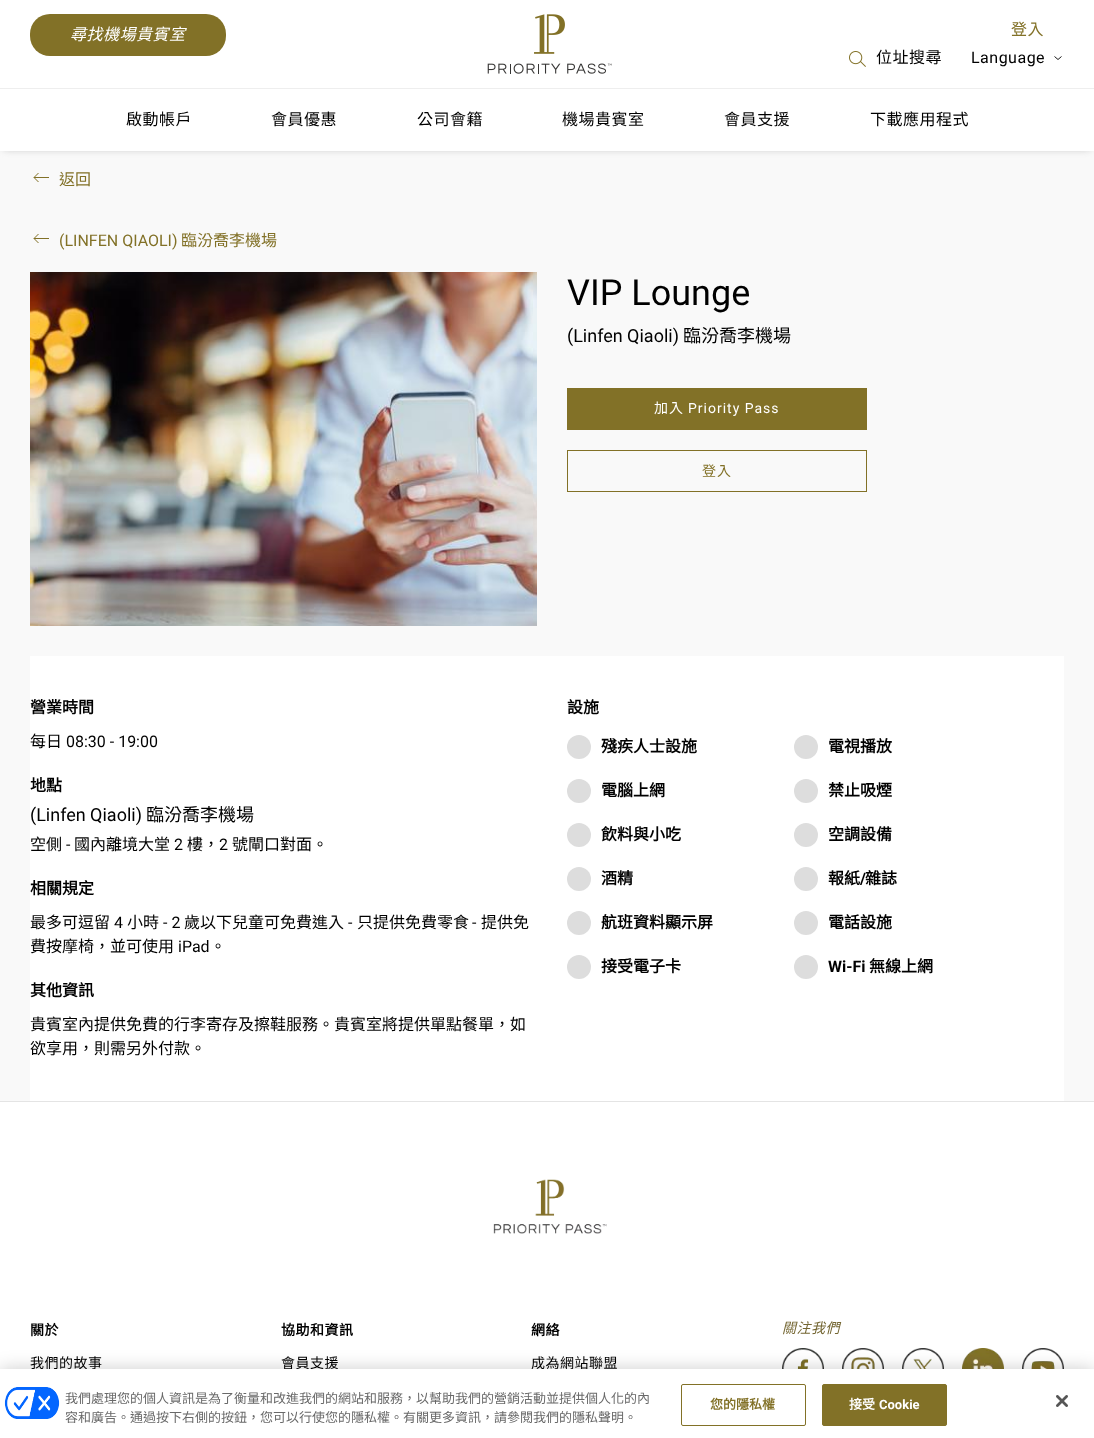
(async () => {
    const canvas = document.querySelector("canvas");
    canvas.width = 1094;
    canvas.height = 1438;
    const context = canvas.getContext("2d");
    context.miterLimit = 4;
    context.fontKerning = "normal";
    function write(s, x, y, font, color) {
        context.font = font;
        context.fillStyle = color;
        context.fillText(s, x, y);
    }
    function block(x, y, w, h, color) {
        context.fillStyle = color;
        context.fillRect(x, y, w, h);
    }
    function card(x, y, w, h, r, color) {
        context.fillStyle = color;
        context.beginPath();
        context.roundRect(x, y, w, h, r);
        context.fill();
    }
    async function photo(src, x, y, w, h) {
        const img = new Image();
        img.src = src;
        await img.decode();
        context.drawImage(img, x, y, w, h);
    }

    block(0, 0, 1094, 1438, "rgb(249, 249, 249)");
    context.fillStyle = "rgb(169, 169, 169)";
    context.filter = "blur(4.5px)";
    context.beginPath();
    context.rect(4, 5, 1086, 143);
    context.fill();
    context.filter = "none";
    block(0, 0, 1094, 151, "rgb(255, 255, 255)");
    block(0, 88, 1094, 1, "rgb(238, 238, 238)");
    card(30, 14, 196, 42, 20, "rgb(130, 113, 39)");
    context.letterSpacing = "0.5px";
    write("尋找機場貴賓室", 70, 40, "italic 16px Noto Sans CJK TC", "rgb(255, 255, 255)");
    await photo("media/1.png", 487, 14, 125, 60);
    write("登入", 1011, 35, "16px Noto Sans CJK TC", "rgb(130, 113, 39)");
    await photo("media/2.png", 849, 51, 17, 16);
    write("位址搜尋", 876, 63, "16px Noto Sans CJK TC", "rgb(0, 0, 0)");
    write("Language", 971, 63, "16px Roboto", "rgb(0, 0, 0)");
    context.beginPath();
    context.moveTo(1061.5, 56.5);
    context.lineTo(1058, 59.5);
    context.lineTo(1054.5, 56.5);
    context.strokeStyle = "rgb(0, 0, 0)";
    context.lineWidth = 0.9;
    context.stroke();
    write("啟動帳戶", 126, 125, "16px Noto Sans CJK TC", "rgb(0, 0, 0)");
    write("會員優惠", 271, 125, "16px Noto Sans CJK TC", "rgb(0, 0, 0)");
    write("公司會籍", 417, 125, "16px Noto Sans CJK TC", "rgb(0, 0, 0)");
    write("機場貴賓室", 562, 125, "16px Noto Sans CJK TC", "rgb(0, 0, 0)");
    write("會員支援", 724, 125, "16px Noto Sans CJK TC", "rgb(0, 0, 0)");
    write("下載應用程式", 870, 125, "16px Noto Sans CJK TC", "rgb(0, 0, 0)");
    context.beginPath();
    context.moveTo(38.5, 173);
    context.lineTo(34, 177.5);
    context.lineTo(38.5, 182);
    context.strokeStyle = "rgb(130, 113, 39)";
    context.lineWidth = 1;
    context.stroke();
    block(34, 177, 15, 1, "rgb(130, 113, 39)");
    context.letterSpacing = "0px";
    write("返回", 59, 185, "16px Noto Sans CJK TC", "rgb(130, 113, 39)");
    context.beginPath();
    context.moveTo(38.5, 234);
    context.lineTo(34, 238.5);
    context.lineTo(38.5, 243);
    context.stroke();
    block(34, 238, 15, 1, "rgb(130, 113, 39)");
    write("(LINFEN QIAOLI)", 59, 246, "16px Roboto", "rgb(130, 113, 39)");
    write("臨汾喬李機場", 181, 246, "16px Noto Sans CJK TC", "rgb(130, 113, 39)");
    await photo("media/3.png", 30, 272, 507, 354);
    write("VIP Lounge", 567, 305, "36px Roboto", "rgb(0, 0, 0)");
    write("(Linfen Qiaoli)", 567, 342, "18px Roboto", "rgb(0, 0, 0)");
    write("臨汾喬李機場", 683, 342, "18px Noto Sans CJK TC", "rgb(0, 0, 0)");
    block(567, 388, 300, 42, "rgb(130, 113, 39)");
    context.letterSpacing = "1px";
    write("加入", 654, 413, "14px Noto Sans CJK TC", "rgb(255, 255, 255)");
    write("Priority Pass", 688, 413, "14px Roboto", "rgb(255, 255, 255)");
    context.strokeRect(567.5, 450.5, 299, 41);
    write("登入", 702, 476, "14px Noto Sans CJK TC", "rgb(130, 113, 39)");
    block(30, 656, 1034, 445, "rgb(255, 255, 255)");
    context.letterSpacing = "0px";
    write("營業時間", 30, 713, "bold 16px Noto Sans CJK TC", "rgb(0, 0, 0)");
    write("每日", 30, 747, "16px Noto Sans CJK TC", "rgb(0, 0, 0)");
    write("08:30 - 19:00", 66, 747, "16px Roboto", "rgb(0, 0, 0)");
    write("地點", 30, 791, "bold 16px Noto Sans CJK TC", "rgb(0, 0, 0)");
    write("(Linfen Qiaoli)", 30, 821, "18px Roboto", "rgb(0, 0, 0)");
    write("臨汾喬李機場", 146, 821, "18px Noto Sans CJK TC", "rgb(0, 0, 0)");
    write("空側", 30, 850, "16px Noto Sans CJK TC", "rgb(0, 0, 0)");
    write("-", 66, 850, "16px Roboto", "rgb(0, 0, 0)");
    write("國內離境大堂", 74, 850, "16px Noto Sans CJK TC", "rgb(0, 0, 0)");
    write("2", 174, 850, "16px Roboto", "rgb(0, 0, 0)");
    write("樓，", 187, 850, "16px Noto Sans CJK TC", "rgb(0, 0, 0)");
    write("2", 219, 850, "16px Roboto", "rgb(0, 0, 0)");
    write("號閘口對面。", 232, 850, "16px Noto Sans CJK TC", "rgb(0, 0, 0)");
    write("相關規定", 30, 894, "bold 16px Noto Sans CJK TC", "rgb(0, 0, 0)");
    write("最多可逗留", 30, 928, "16px Noto Sans CJK TC", "rgb(0, 0, 0)");
    write("4", 114, 928, "16px Roboto", "rgb(0, 0, 0)");
    write("小時", 127, 928, "16px Noto Sans CJK TC", "rgb(0, 0, 0)");
    write("- 2", 163, 928, "16px Roboto", "rgb(0, 0, 0)");
    write("歲以下兒童可免費進入", 184, 928, "16px Noto Sans CJK TC", "rgb(0, 0, 0)");
    write("-", 348, 928, "16px Roboto", "rgb(0, 0, 0)");
    write("只提供免費零食", 357, 928, "16px Noto Sans CJK TC", "rgb(0, 0, 0)");
    write("-", 472, 928, "16px Roboto", "rgb(0, 0, 0)");
    write("提供免", 481, 928, "16px Noto Sans CJK TC", "rgb(0, 0, 0)");
    write("費按摩椅，並可使用", 30, 952, "16px Noto Sans CJK TC", "rgb(0, 0, 0)");
    write("iPad", 178, 952, "16px Roboto", "rgb(0, 0, 0)");
    write("。", 210, 952, "16px Noto Sans CJK TC", "rgb(0, 0, 0)");
    write("其他資訊", 30, 996, "bold 16px Noto Sans CJK TC", "rgb(0, 0, 0)");
    write("貴賓室內提供免費的行李寄存及擦鞋服務。貴賓室將提供單點餐單，如", 30, 1030, "16px Noto Sans CJK TC", "rgb(0, 0, 0)");
    write("欲享用，則需另外付款。", 30, 1054, "16px Noto Sans CJK TC", "rgb(0, 0, 0)");
    write("設施", 567, 713, "bold 16px Noto Sans CJK TC", "rgb(0, 0, 0)");
    context.fillStyle = "rgb(221, 221, 221)";
    context.beginPath();
    context.arc(579, 747, 12, 0, Math.PI * 2);
    context.fill();
    write("殘疾人士設施", 601, 752, "bold 16px Noto Sans CJK TC", "rgb(0, 0, 0)");
    context.fillStyle = "rgb(221, 221, 221)";
    context.beginPath();
    context.arc(806, 747, 12, 0, Math.PI * 2);
    context.fill();
    write("電視播放", 828, 752, "bold 16px Noto Sans CJK TC", "rgb(0, 0, 0)");
    context.fillStyle = "rgb(221, 221, 221)";
    context.beginPath();
    context.arc(579, 791, 12, 0, Math.PI * 2);
    context.fill();
    write("電腦上網", 601, 796, "bold 16px Noto Sans CJK TC", "rgb(0, 0, 0)");
    context.fillStyle = "rgb(221, 221, 221)";
    context.beginPath();
    context.arc(806, 791, 12, 0, Math.PI * 2);
    context.fill();
    write("禁止吸煙", 828, 796, "bold 16px Noto Sans CJK TC", "rgb(0, 0, 0)");
    context.fillStyle = "rgb(221, 221, 221)";
    context.beginPath();
    context.arc(579, 835, 12, 0, Math.PI * 2);
    context.fill();
    write("飲料與小吃", 601, 840, "bold 16px Noto Sans CJK TC", "rgb(0, 0, 0)");
    context.fillStyle = "rgb(221, 221, 221)";
    context.beginPath();
    context.arc(806, 835, 12, 0, Math.PI * 2);
    context.fill();
    write("空調設備", 828, 840, "bold 16px Noto Sans CJK TC", "rgb(0, 0, 0)");
    context.fillStyle = "rgb(221, 221, 221)";
    context.beginPath();
    context.arc(579, 879, 12, 0, Math.PI * 2);
    context.fill();
    write("酒精", 601, 884, "bold 16px Noto Sans CJK TC", "rgb(0, 0, 0)");
    context.fillStyle = "rgb(221, 221, 221)";
    context.beginPath();
    context.arc(806, 879, 12, 0, Math.PI * 2);
    context.fill();
    write("報紙", 828, 884, "bold 16px Noto Sans CJK TC", "rgb(0, 0, 0)");
    write("/", 860, 884, "bold 16px Roboto", "rgb(0, 0, 0)");
    write("雜誌", 865, 884, "bold 16px Noto Sans CJK TC", "rgb(0, 0, 0)");
    context.fillStyle = "rgb(221, 221, 221)";
    context.beginPath();
    context.arc(579, 923, 12, 0, Math.PI * 2);
    context.fill();
    write("航班資料顯示屏", 601, 928, "bold 16px Noto Sans CJK TC", "rgb(0, 0, 0)");
    context.fillStyle = "rgb(221, 221, 221)";
    context.beginPath();
    context.arc(806, 923, 12, 0, Math.PI * 2);
    context.fill();
    write("電話設施", 828, 928, "bold 16px Noto Sans CJK TC", "rgb(0, 0, 0)");
    context.fillStyle = "rgb(221, 221, 221)";
    context.beginPath();
    context.arc(579, 967, 12, 0, Math.PI * 2);
    context.fill();
    write("接受電子卡", 601, 972, "bold 16px Noto Sans CJK TC", "rgb(0, 0, 0)");
    context.fillStyle = "rgb(221, 221, 221)";
    context.beginPath();
    context.arc(806, 967, 12, 0, Math.PI * 2);
    context.fill();
    write("Wi-Fi", 828, 972, "bold 16px Roboto", "rgb(0, 0, 0)");
    write("無線上網", 869, 972, "bold 16px Noto Sans CJK TC", "rgb(0, 0, 0)");
    block(0, 1102, 1094, 267, "rgb(255, 255, 255)");
    block(0, 1101, 1094, 1, "rgb(228, 228, 228)");
    await photo("media/4.png", 493, 1179, 114, 55);
    context.letterSpacing = "0.5px";
    write("關於", 30, 1335, "bold 14px Noto Sans CJK TC", "rgb(0, 0, 0)");
    write("我們的故事", 30, 1368, "14px Noto Sans CJK TC", "rgb(0, 0, 0)");
    write("協助和資訊", 281, 1335, "bold 14px Noto Sans CJK TC", "rgb(0, 0, 0)");
    write("會員支援", 281, 1368, "14px Noto Sans CJK TC", "rgb(0, 0, 0)");
    write("網絡", 531, 1335, "bold 14px Noto Sans CJK TC", "rgb(0, 0, 0)");
    write("成為網站聯盟", 531, 1368, "14px Noto Sans CJK TC", "rgb(0, 0, 0)");
    write("關注我們", 782, 1333, "italic 14px Noto Sans CJK TC", "rgb(116, 102, 50)");
    await photo("media/5.png", 782, 1348, 42, 21);
    await photo("media/6.png", 842, 1348, 42, 21);
    await photo("media/7.png", 902, 1348, 42, 21);
    await photo("media/8.png", 962, 1348, 42, 21);
    await photo("media/9.png", 1022, 1348, 42, 21);
    context.fillStyle = "rgba(0, 0, 0, 0.2)";
    context.filter = "blur(9px)";
    context.beginPath();
    context.rect(0, 1369, 1094, 69);
    context.fill();
    context.filter = "none";
    block(0, 1369, 1094, 69, "rgb(255, 255, 255)");
    await photo("media/10.png", 4, 1387, 56, 32);
    context.letterSpacing = "0px";
    write("我們處理您的個人資訊是為了衡量和改進我們的網站和服務，以幫助我們的營銷活動並提供個人化的內", 65, 1403, "13px Noto Sans CJK TC", "rgb(105, 105, 105)");
    write("容和廣告。通過按下右側的按鈕，您可以行使您的隱私權。有關更多資訊，請參閱我們的隱私聲明。", 65, 1422, "13px Noto Sans CJK TC", "rgb(105, 105, 105)");
    context.beginPath();
    context.roundRect(681.5, 1384.5, 124, 41, 1.5);
    context.stroke();
    write("您的隱私權", 710, 1409, "bold 13px Noto Sans CJK TC", "rgb(130, 113, 39)");
    context.beginPath();
    context.roundRect(822.5, 1384.5, 124, 41, 1.5);
    context.fill();
    context.stroke();
    write("接受", 849, 1409, "bold 13px Noto Sans CJK TC", "rgb(255, 255, 255)");
    write("Cookie", 879, 1409, "bold 13px Roboto", "rgb(255, 255, 255)");
    await photo("media/11.png", 1056, 1395, 12, 12);
})();
